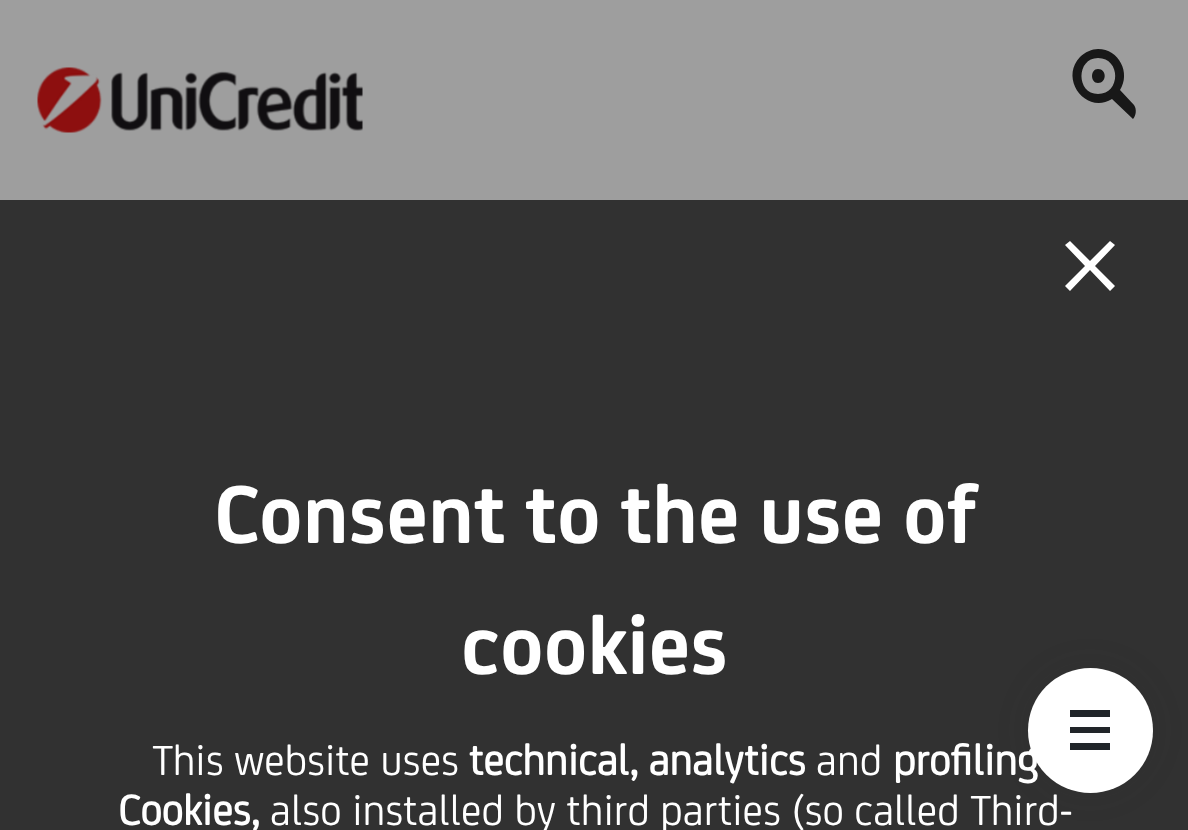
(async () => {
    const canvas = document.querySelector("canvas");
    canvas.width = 1188;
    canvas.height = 830;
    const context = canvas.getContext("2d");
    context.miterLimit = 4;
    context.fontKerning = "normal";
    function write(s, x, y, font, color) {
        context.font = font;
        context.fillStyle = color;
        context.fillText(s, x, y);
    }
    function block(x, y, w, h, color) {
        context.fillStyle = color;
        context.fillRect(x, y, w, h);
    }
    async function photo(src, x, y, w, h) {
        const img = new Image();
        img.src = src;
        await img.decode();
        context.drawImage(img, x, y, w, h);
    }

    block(0, 0, 1188, 830, "rgb(158, 158, 158)");
    await photo("media/1.png", 37, 67, 326, 66);
    context.fillStyle = "rgb(24, 24, 24)";
    context.beginPath();
    context.moveTo(1098, 49);
    context.bezierCurveTo(1092, 49, 1085, 52, 1080, 57);
    context.bezierCurveTo(1059, 79, 1086, 115, 1112, 99);
    context.lineTo(1133, 119);
    context.bezierCurveTo(1136, 116, 1137, 109, 1134, 105);
    context.lineTo(1120, 90);
    context.bezierCurveTo(1131, 73, 1119, 49, 1098, 49);
    context.closePath();
    context.moveTo(1098, 58);
    context.bezierCurveTo(1121, 58, 1121, 94, 1098, 94);
    context.bezierCurveTo(1076, 94, 1076, 58, 1098, 58);
    context.closePath();
    context.moveTo(1098, 69);
    context.bezierCurveTo(1090, 69, 1090, 83, 1098, 83);
    context.bezierCurveTo(1107, 83, 1107, 69, 1098, 69);
    context.closePath();
    context.fill();
    block(0, 200, 1188, 630, "rgb(49, 49, 49)");
    context.fillStyle = "rgba(38, 38, 38, 0.08)";
    context.filter = "blur(12.5px)";
    context.beginPath();
    context.roundRect(1020, 660, 140, 140, 70);
    context.fill();
    context.filter = "none";
    context.fillStyle = "rgb(255, 255, 255)";
    context.beginPath();
    context.arc(1090.5, 730.5, 62.5, 0, Math.PI * 2);
    context.fill();
    context.fillStyle = "rgb(33, 37, 41)";
    context.beginPath();
    context.moveTo(1070, 717);
    context.lineTo(1110, 717);
    context.lineTo(1110, 710);
    context.lineTo(1070, 710);
    context.closePath();
    context.moveTo(1070, 733);
    context.lineTo(1110, 733);
    context.lineTo(1110, 727);
    context.lineTo(1070, 727);
    context.closePath();
    context.moveTo(1070, 750);
    context.lineTo(1110, 750);
    context.lineTo(1110, 743);
    context.lineTo(1070, 743);
    context.closePath();
    context.fill();
    context.fillStyle = "rgb(255, 255, 255)";
    context.beginPath();
    context.moveTo(1110, 241);
    context.lineTo(1090, 261);
    context.lineTo(1070, 241);
    context.lineTo(1065, 245);
    context.lineTo(1085, 266);
    context.lineTo(1065, 286);
    context.lineTo(1070, 291);
    context.lineTo(1090, 270);
    context.lineTo(1110, 291);
    context.lineTo(1115, 286);
    context.lineTo(1095, 266);
    context.lineTo(1115, 245);
    context.closePath();
    context.fill();
    write("Consent to the use of", 214, 543, "bold 87.5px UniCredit", "rgb(255, 255, 255)");
    write("cookies", 461, 674, "bold 87.5px UniCredit", "rgb(255, 255, 255)");
    write("This website uses", 152, 775, "45px UniCredit", "rgb(255, 255, 255)");
    write("technical, analytics", 469, 775, "bold 45px 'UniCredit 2'", "rgb(255, 255, 255)");
    write("and", 816, 775, "45px UniCredit", "rgb(255, 255, 255)");
    write("profiling", 893, 775, "bold 45px 'UniCredit 2'", "rgb(255, 255, 255)");
    write("Cookies,", 118, 825, "bold 45px 'UniCredit 2'", "rgb(255, 255, 255)");
    write("also installed by third parties (so called Third-", 270, 825, "45px UniCredit", "rgb(255, 255, 255)");
})();
